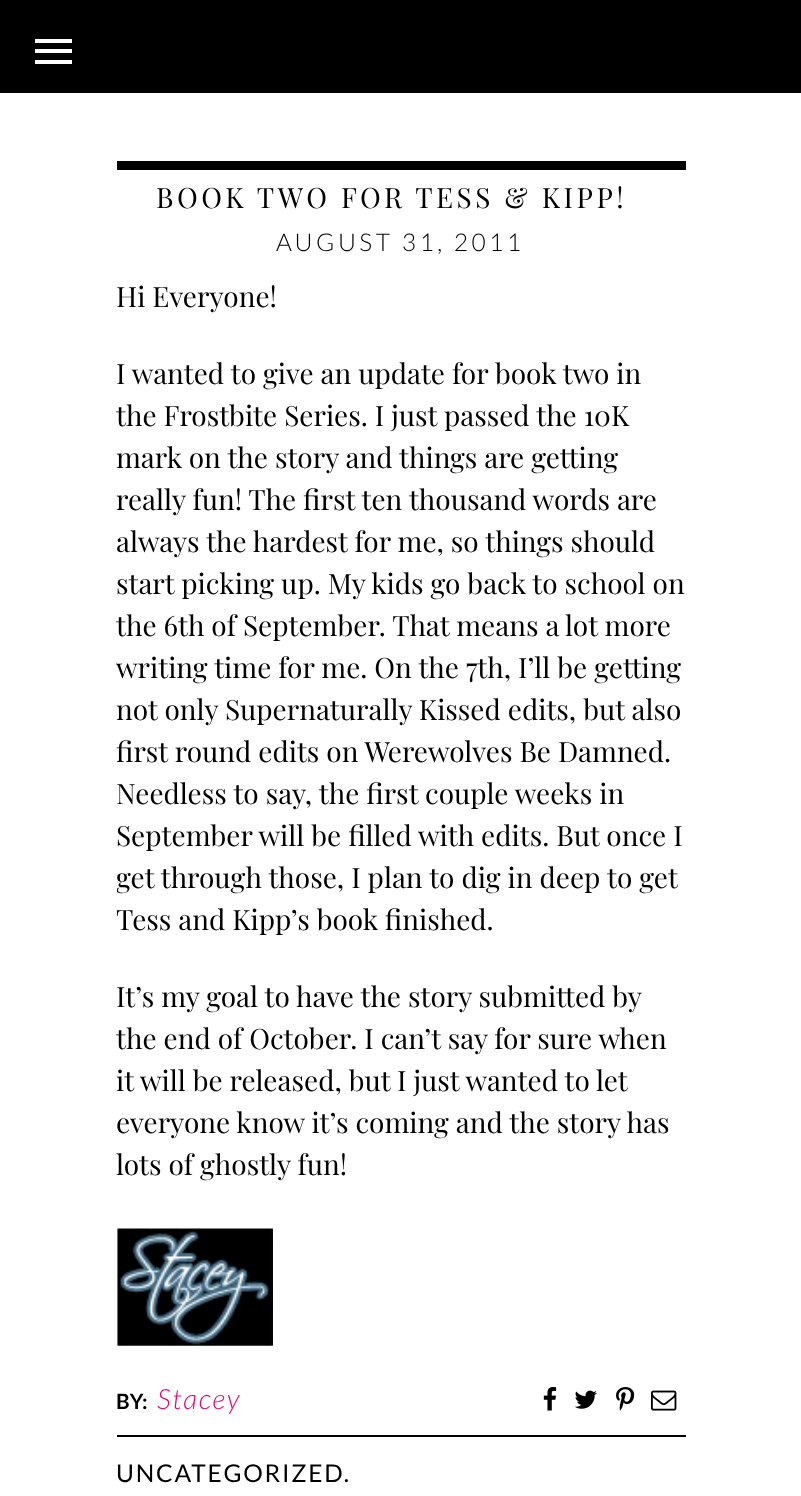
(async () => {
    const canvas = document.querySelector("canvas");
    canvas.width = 801;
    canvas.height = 1496;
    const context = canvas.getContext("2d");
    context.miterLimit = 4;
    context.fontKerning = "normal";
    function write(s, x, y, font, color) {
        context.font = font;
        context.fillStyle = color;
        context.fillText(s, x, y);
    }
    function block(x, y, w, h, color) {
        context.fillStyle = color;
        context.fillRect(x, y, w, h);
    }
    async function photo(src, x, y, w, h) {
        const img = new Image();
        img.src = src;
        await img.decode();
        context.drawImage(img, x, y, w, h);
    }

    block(0, 0, 801, 1496, "rgb(255, 255, 255)");
    block(0, 0, 801, 93, "rgb(0, 0, 0)");
    block(35, 39, 37, 4, "rgb(255, 255, 255)");
    block(35, 49, 37, 4, "rgb(255, 255, 255)");
    block(35, 60, 37, 4, "rgb(255, 255, 255)");
    block(117, 161, 569, 9, "rgb(0, 0, 0)");
    context.letterSpacing = "3.5px";
    write("BOOK TWO FOR TESS & KIPP!", 156, 208, "28px Playfair Display", "rgb(0, 0, 0)");
    write("AUGUST 31, 2011", 276, 251, "300 24.5px Lato", "rgb(0, 0, 0)");
    context.letterSpacing = "0px";
    write("Hi Everyone!", 116, 307, "28px Playfair Display", "rgb(0, 0, 0)");
    write("I wanted to give an update for book two in", 116, 384, "28px Playfair Display", "rgb(0, 0, 0)");
    write("the Frostbite Series. I just passed the 10K", 116, 426, "28px Playfair Display", "rgb(0, 0, 0)");
    write("mark on the story and things are getting", 116, 468, "28px Playfair Display", "rgb(0, 0, 0)");
    write("really fun! The first ten thousand words are", 116, 510, "28px Playfair Display", "rgb(0, 0, 0)");
    write("always the hardest for me, so things should", 116, 552, "28px Playfair Display", "rgb(0, 0, 0)");
    write("start picking up. My kids go back to school on", 116, 594, "28px Playfair Display", "rgb(0, 0, 0)");
    write("the 6th of September. That means a lot more", 116, 636, "28px Playfair Display", "rgb(0, 0, 0)");
    write("writing time for me. On the 7th, I’ll be getting", 116, 678, "28px Playfair Display", "rgb(0, 0, 0)");
    write("not only Supernaturally Kissed edits, but also", 116, 720, "28px Playfair Display", "rgb(0, 0, 0)");
    write("first round edits on Werewolves Be Damned.", 116, 762, "28px Playfair Display", "rgb(0, 0, 0)");
    write("Needless to say, the first couple weeks in", 116, 804, "28px Playfair Display", "rgb(0, 0, 0)");
    write("September will be filled with edits. But once I", 116, 846, "28px Playfair Display", "rgb(0, 0, 0)");
    context.save();
    context.beginPath();
    context.rect(117, 275, 569, 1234);
    context.clip();
    write("get through those, I plan to dig in deep to get", 116, 888, "28px Playfair Display", "rgb(0, 0, 0)");
    context.restore();
    write("Tess and Kipp’s book finished.", 116, 930, "28px Playfair Display", "rgb(0, 0, 0)");
    write("It’s my goal to have the story submitted by", 116, 1007, "28px Playfair Display", "rgb(0, 0, 0)");
    write("the end of October. I can’t say for sure when", 116, 1049, "28px Playfair Display", "rgb(0, 0, 0)");
    write("it will be released, but I just wanted to let", 116, 1091, "28px Playfair Display", "rgb(0, 0, 0)");
    write("everyone know it’s coming and the story has", 116, 1133, "28px Playfair Display", "rgb(0, 0, 0)");
    write("lots of ghostly fun!", 116, 1175, "28px Playfair Display", "rgb(0, 0, 0)");
    await photo("media/1.png", 117, 1228, 156, 118);
    write("BY:", 116, 1409, "bold 21px Lato", "rgb(0, 0, 0)");
    context.letterSpacing = "1.75px";
    write("Stacey", 157, 1409, "italic 300 28px Lato", "rgb(227, 8, 119)");
    await photo("media/2.png", 543, 1387, 14, 24);
    await photo("media/3.png", 574, 1390, 23, 19);
    await photo("media/4.png", 616, 1387, 19, 24);
    await photo("media/5.png", 651, 1390, 26, 21);
    block(117, 1435, 569, 2, "rgb(0, 0, 0)");
    write("UNCATEGORIZED.", 116, 1482, "24.5px Lato", "rgb(0, 0, 0)");
})();
